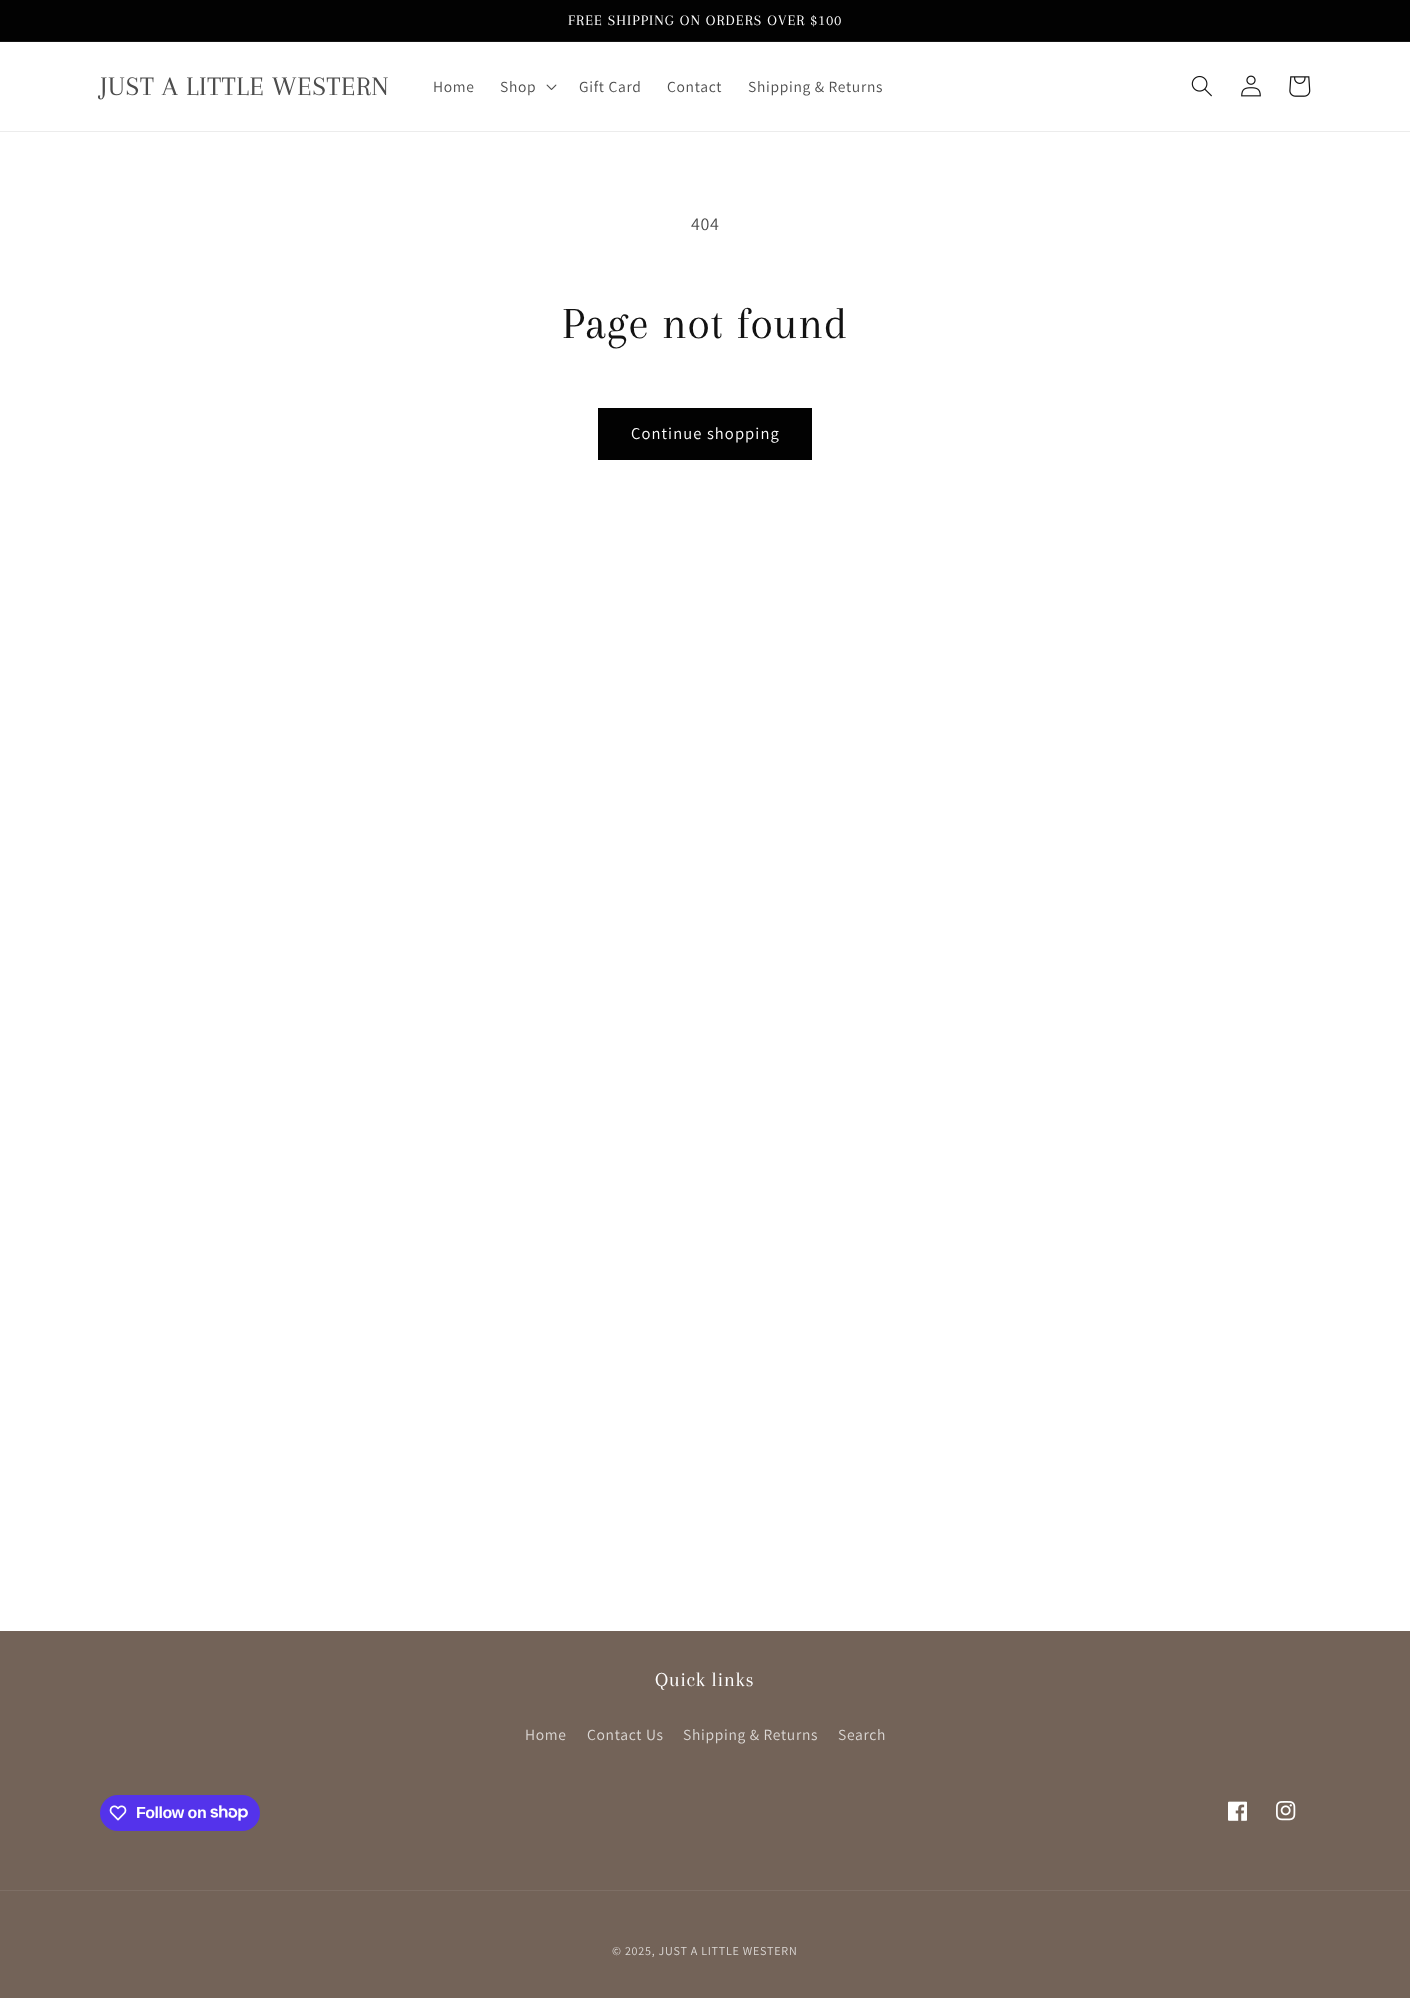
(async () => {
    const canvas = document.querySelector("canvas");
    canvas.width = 1410;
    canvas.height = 1998;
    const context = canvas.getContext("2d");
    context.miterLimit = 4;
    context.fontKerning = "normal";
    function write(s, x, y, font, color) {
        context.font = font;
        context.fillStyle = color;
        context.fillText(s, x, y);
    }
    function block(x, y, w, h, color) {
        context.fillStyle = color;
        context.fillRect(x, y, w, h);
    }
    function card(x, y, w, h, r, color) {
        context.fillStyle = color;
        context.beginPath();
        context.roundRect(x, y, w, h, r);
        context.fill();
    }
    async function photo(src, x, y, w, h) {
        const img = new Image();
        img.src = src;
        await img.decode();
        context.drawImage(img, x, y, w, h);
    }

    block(0, 0, 1410, 1998, "rgb(255, 255, 255)");
    block(0, 0, 1410, 41, "rgb(2, 2, 2)");
    block(0, 41, 1410, 1, "rgb(22, 22, 22)");
    context.letterSpacing = "1.1px";
    write("FREE SHIPPING ON ORDERS OVER $100", 568, 25, "15px Arapey", "rgb(255, 255, 255)");
    block(0, 131, 1410, 1, "rgb(236, 236, 236)");
    context.letterSpacing = "0.7px";
    write("JUST A LITTLE WESTERN", 100, 95, "27.6px Arapey", "rgb(77, 77, 77)");
    write("Home", 433, 92, "15.5px Assistant", "rgb(77, 77, 77)");
    write("Shop", 500, 92, "15.5px Assistant", "rgb(77, 77, 77)");
    await photo("media/1.png", 546, 84, 11, 6);
    write("Gift Card", 579, 92, "15.5px Assistant", "rgb(77, 77, 77)");
    write("Contact", 667, 92, "15.5px Assistant", "rgb(77, 77, 77)");
    write("Shipping & Returns", 748, 92, "15.5px Assistant", "rgb(77, 77, 77)");
    await photo("media/2.png", 1191, 75, 21, 22);
    await photo("media/3.png", 1241, 75, 20, 22);
    await photo("media/4.png", 1289, 76, 22, 21);
    write("404", 691, 230, "18px Assistant", "rgb(77, 77, 77)");
    write("Page not found", 562, 338, "46px Arapey", "rgb(18, 18, 18)");
    block(598, 408, 214, 52, "rgb(2, 2, 2)");
    context.letterSpacing = "1.1px";
    write("Continue shopping", 631, 439, "16.5px Assistant", "rgb(255, 255, 255)");
    block(0, 1631, 1410, 367, "rgb(115, 99, 88)");
    context.letterSpacing = "0.7px";
    write("Quick links", 655, 1686, "20.5px Arapey", "rgb(255, 255, 255)");
    write("Home", 525, 1740, "15.5px Assistant", "rgb(220, 216, 213)");
    write("Contact Us", 587, 1740, "15.5px Assistant", "rgb(220, 216, 213)");
    write("Shipping & Returns", 683, 1740, "15.5px Assistant", "rgb(220, 216, 213)");
    write("Search", 838, 1740, "15.5px Assistant", "rgb(220, 216, 213)");
    card(100, 1795, 160, 36, 18, "rgb(84, 51, 235)");
    await photo("media/5.png", 109, 1805, 18, 16);
    context.letterSpacing = "-0.5px";
    write("Follow on", 136, 1818, "bold 16px Liberation Sans", "rgb(255, 255, 255)");
    await photo("media/6.png", 210, 1805, 38, 16);
    await photo("media/7.png", 1228, 1801, 19, 20);
    await photo("media/8.png", 1276, 1801, 20, 20);
    block(0, 1890, 1410, 1, "rgb(126, 111, 101)");
    context.letterSpacing = "0.75px";
    write("© 2025, JUST A LITTLE WESTERN", 612, 1955, "12.1px Assistant", "rgb(220, 216, 213)");
})();
